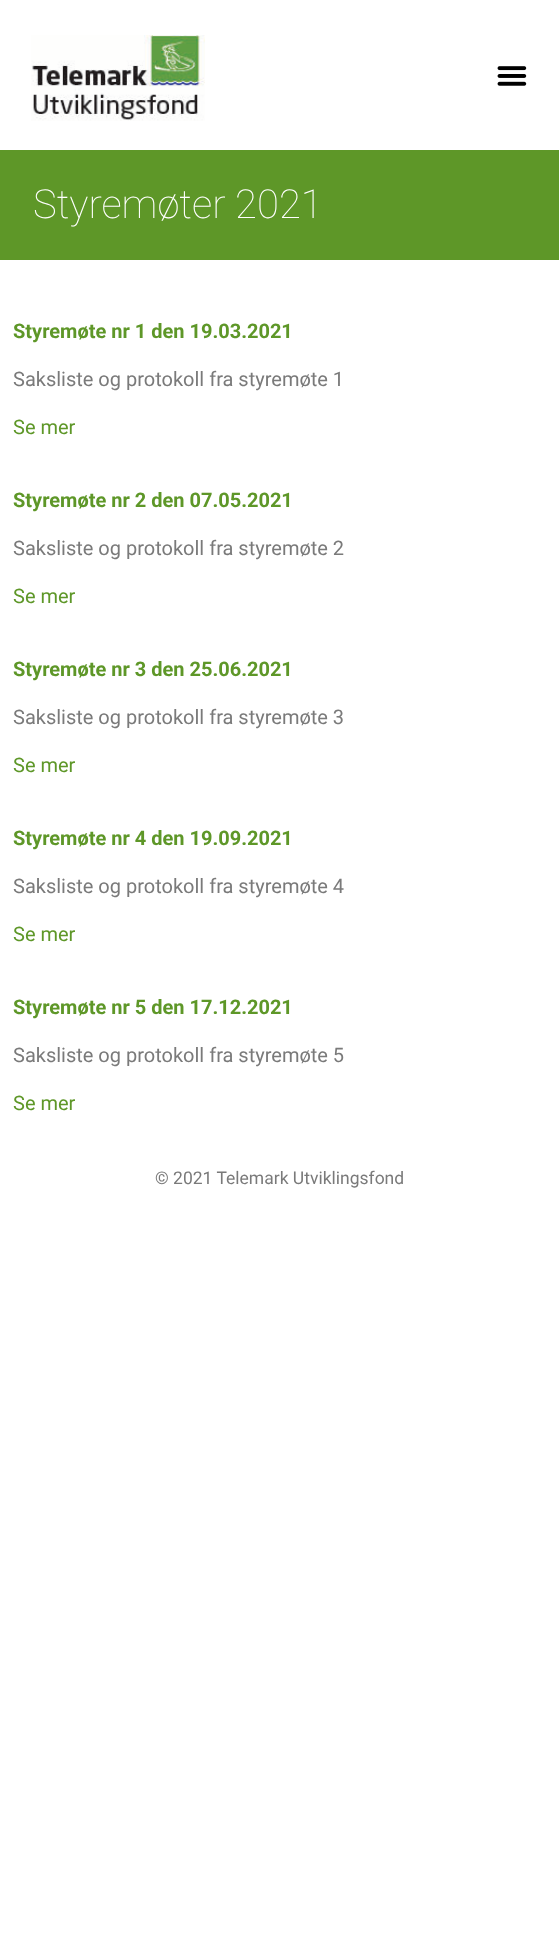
(async () => {
    const canvas = document.querySelector("canvas");
    canvas.width = 559;
    canvas.height = 1955;
    const context = canvas.getContext("2d");
    context.miterLimit = 4;
    context.fontKerning = "normal";
    function write(s, x, y, font, color) {
        context.font = font;
        context.fillStyle = color;
        context.fillText(s, x, y);
    }
    function block(x, y, w, h, color) {
        context.fillStyle = color;
        context.fillRect(x, y, w, h);
    }
    async function photo(src, x, y, w, h) {
        const img = new Image();
        img.src = src;
        await img.decode();
        context.drawImage(img, x, y, w, h);
    }

    block(0, 0, 559, 1955, "rgb(255, 255, 255)");
    await photo("media/1.png", 31, 35, 174, 86);
    await photo("media/2.png", 497, 66, 30, 20);
    block(0, 150, 559, 110, "rgb(94, 151, 40)");
    write("Styremøter 2021", 33, 218, "100 40px Roboto", "rgb(255, 255, 255)");
    write("Styremøte nr 1 den 19.03.2021", 13, 338, "bold 20px Roboto", "rgb(94, 151, 40)");
    write("Saksliste og protokoll fra styremøte 1", 13, 386, "20px Roboto", "rgb(122, 122, 122)");
    write("Se mer", 13, 434, "20px Roboto", "rgb(94, 151, 40)");
    write("Styremøte nr 2 den 07.05.2021", 13, 507, "bold 20px Roboto", "rgb(94, 151, 40)");
    write("Saksliste og protokoll fra styremøte 2", 13, 555, "20px Roboto", "rgb(122, 122, 122)");
    write("Se mer", 13, 603, "20px Roboto", "rgb(94, 151, 40)");
    write("Styremøte nr 3 den 25.06.2021", 13, 676, "bold 20px Roboto", "rgb(94, 151, 40)");
    write("Saksliste og protokoll fra styremøte 3", 13, 724, "20px Roboto", "rgb(122, 122, 122)");
    write("Se mer", 13, 772, "20px Roboto", "rgb(94, 151, 40)");
    write("Styremøte nr 4 den 19.09.2021", 13, 845, "bold 20px Roboto", "rgb(94, 151, 40)");
    write("Saksliste og protokoll fra styremøte 4", 13, 893, "20px Roboto", "rgb(122, 122, 122)");
    write("Se mer", 13, 941, "20px Roboto", "rgb(94, 151, 40)");
    write("Styremøte nr 5 den 17.12.2021", 13, 1014, "bold 20px Roboto", "rgb(94, 151, 40)");
    write("Saksliste og protokoll fra styremøte 5", 13, 1062, "20px Roboto", "rgb(122, 122, 122)");
    write("Se mer", 13, 1110, "20px Roboto", "rgb(94, 151, 40)");
    write("© 2021 Telemark Utviklingsfond", 155, 1184, "17.5px Roboto", "rgb(122, 122, 122)");
})();
